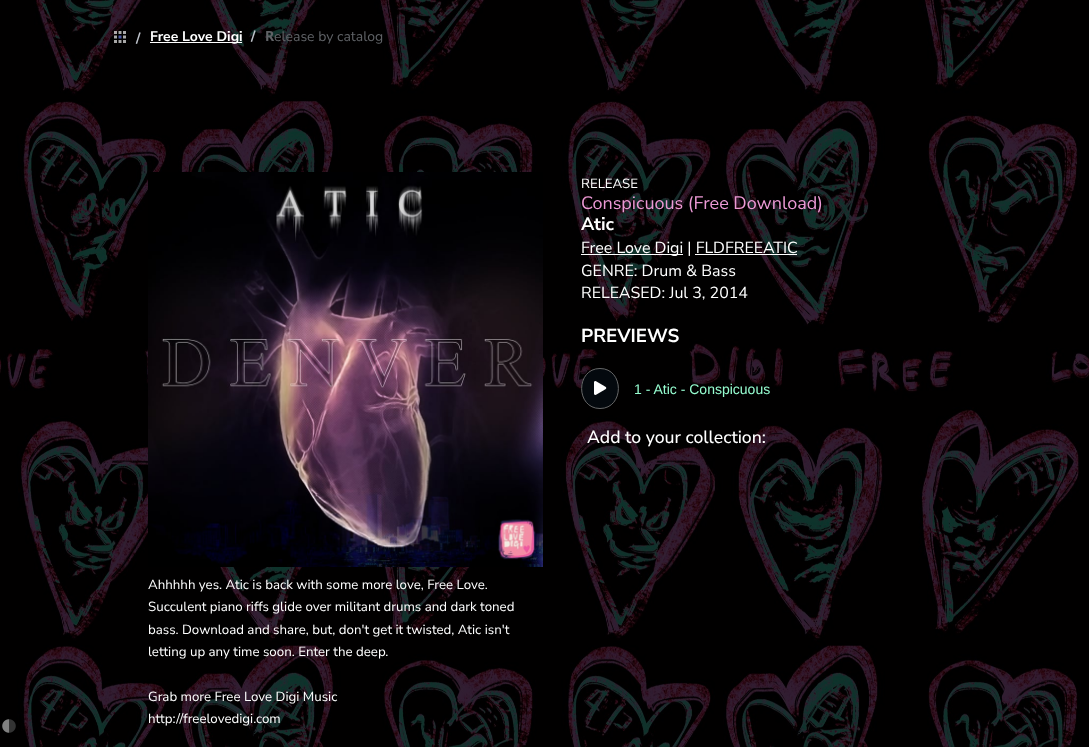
(async () => {
    const canvas = document.querySelector("canvas");
    canvas.width = 1089;
    canvas.height = 747;
    const context = canvas.getContext("2d");
    context.miterLimit = 4;
    context.fontKerning = "normal";
    function write(s, x, y, font, color) {
        context.font = font;
        context.fillStyle = color;
        context.fillText(s, x, y);
    }
    function block(x, y, w, h, color) {
        context.fillStyle = color;
        context.fillRect(x, y, w, h);
    }
    async function photo(src, x, y, w, h) {
        const img = new Image();
        img.src = src;
        await img.decode();
        context.drawImage(img, x, y, w, h);
    }

    block(0, 0, 1089, 747, "rgb(0, 0, 0)");
    await photo("media/1.png", 0, 0, 1089, 747);
    await photo("media/2.png", 2, 719, 14, 14);
    await photo("media/3.png", 114, 31, 12, 12);
    write("/", 136, 43, "bold 14px Nunito Sans", "rgb(192, 196, 204)");
    block(150, 42, 92, 1, "rgb(255, 255, 255)");
    write("Free Love Digi", 150, 41, "bold 14px Nunito Sans", "rgb(255, 255, 255)");
    write("/", 251, 41, "bold 14px Nunito Sans", "rgb(192, 196, 204)");
    write("R", 265, 41, "bold 14px Noto Sans", "rgb(96, 98, 102)");
    write("elease by catalog", 274, 41, "14px Nunito Sans", "rgb(96, 98, 102)");
    write("RELEASE", 581, 188, "13.3px Nunito Sans", "rgb(255, 255, 255)");
    write("Conspicuous (Free Download)", 581, 209, "18px Nunito Sans", "rgb(236, 153, 213)");
    write("Atic", 581, 230, "bold 18px Nunito Sans", "rgb(255, 255, 255)");
    block(581, 254, 102, 1, "rgb(255, 255, 255)");
    write("Free Love Digi | FLDFREEATIC", 581, 253, "16px Nunito Sans", "rgb(255, 255, 255)");
    block(695, 254, 102, 1, "rgb(255, 255, 255)");
    write("GENRE: Drum & Bass", 581, 276, "16px Nunito Sans", "rgb(255, 255, 255)");
    write("RELEASED: Jul 3, 2014", 581, 298, "16px Nunito Sans", "rgb(255, 255, 255)");
    write("PREVIEWS", 581, 342, "bold 18.75px Nunito Sans", "rgb(255, 255, 255)");
    context.fillStyle = "rgb(4, 9, 14)";
    context.beginPath();
    context.ellipse(600, 388.5, 19, 20.5, 0, 0, Math.PI * 2);
    context.fill();
    context.beginPath();
    context.moveTo(600, 368.5);
    context.bezierCurveTo(624.5, 368.5, 624.5, 408.5, 600, 408.5);
    context.bezierCurveTo(575.5, 408.5, 575.5, 368.5, 600, 368.5);
    context.closePath();
    context.strokeStyle = "rgb(103, 103, 103)";
    context.stroke();
    await photo("media/4.png", 594, 381, 13, 14);
    write("1 - Atic - Conspicuous", 634, 394, "14px Liberation Sans", "rgb(150, 253, 208)");
    write("Add to your collection:", 587, 443, "500 17.6px Nunito Sans", "rgb(255, 255, 255)");
    await photo("media/5.png", 148, 172, 395, 395);
    write("Ahhhhh yes. Atic is back with some more love, Free Love.", 148, 589, "13.3px Nunito Sans", "rgb(255, 255, 255)");
    write("Succulent piano riffs glide over militant drums and dark toned", 148, 611, "13.3px Nunito Sans", "rgb(255, 255, 255)");
    write("bass. Download and share, but, don't get it twisted, Atic isn't", 148, 634, "13.3px Nunito Sans", "rgb(255, 255, 255)");
    write("letting up any time soon. Enter the deep.", 148, 656, "13.3px Nunito Sans", "rgb(255, 255, 255)");
    write("Grab more Free Love Digi Music", 148, 701, "13.3px Nunito Sans", "rgb(255, 255, 255)");
    write("http://freelovedigi.com", 148, 723, "13.3px Nunito Sans", "rgb(255, 255, 255)");
})();
